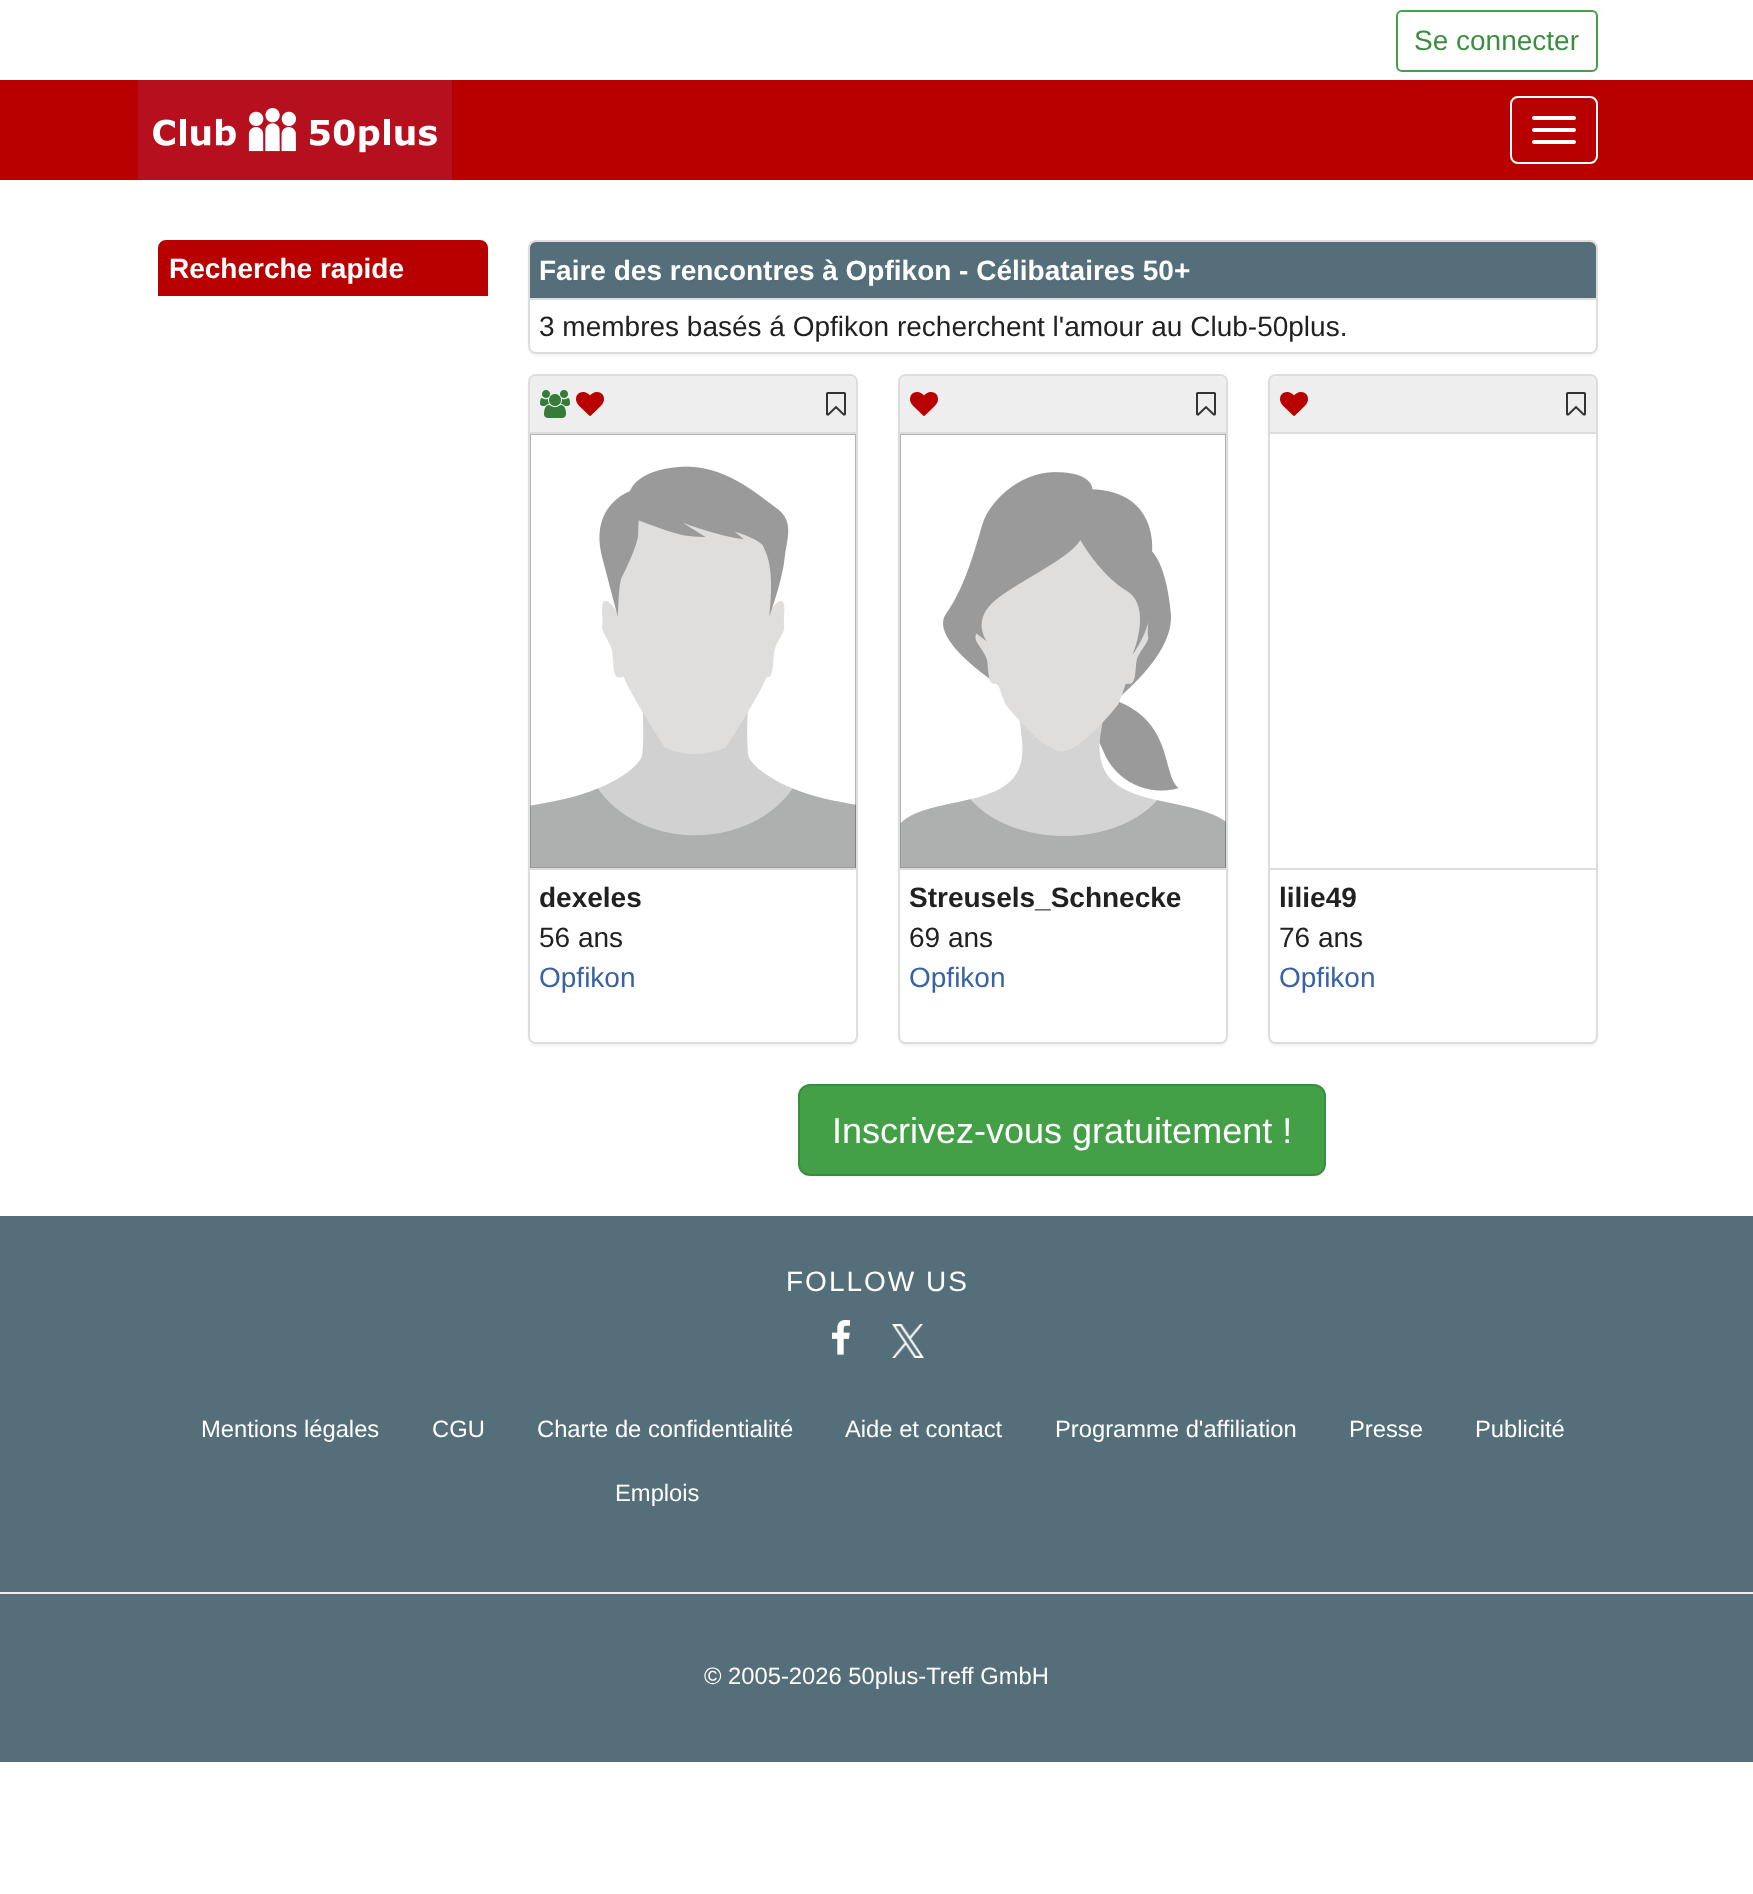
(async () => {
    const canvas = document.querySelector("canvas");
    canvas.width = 1753;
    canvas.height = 1894;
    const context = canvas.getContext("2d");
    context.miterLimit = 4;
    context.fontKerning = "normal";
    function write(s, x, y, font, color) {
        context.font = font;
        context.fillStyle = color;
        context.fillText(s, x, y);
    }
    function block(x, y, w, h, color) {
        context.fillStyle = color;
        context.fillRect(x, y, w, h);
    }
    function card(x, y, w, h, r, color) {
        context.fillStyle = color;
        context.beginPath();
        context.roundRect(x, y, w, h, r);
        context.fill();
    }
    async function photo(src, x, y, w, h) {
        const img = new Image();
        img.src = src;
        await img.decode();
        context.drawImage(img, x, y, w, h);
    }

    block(0, 0, 1753, 1894, "rgb(255, 255, 255)");
    context.beginPath();
    context.roundRect(1397, 11, 200, 60, 5);
    context.strokeStyle = "rgb(67, 160, 71)";
    context.lineWidth = 2;
    context.stroke();
    write("Se connecter", 1414, 50, "28px Liberation Sans", "rgb(59, 142, 63)");
    block(0, 80, 1753, 100, "rgb(185, 0, 0)");
    await photo("media/1.png", 138, 80, 314, 100);
    context.beginPath();
    context.roundRect(1511, 97, 86, 66, 7);
    context.strokeStyle = "rgb(255, 255, 255)";
    context.stroke();
    card(1532, 116, 44, 4, 2, "rgb(255, 255, 255)");
    card(1532, 128, 44, 4, 2, "rgb(255, 255, 255)");
    card(1532, 140, 44, 4, 2, "rgb(255, 255, 255)");
    context.fillStyle = "rgb(185, 0, 0)";
    context.beginPath();
    context.roundRect(159, 241, 328, 54, [7, 7, 0, 0]);
    context.fill();
    context.strokeStyle = "rgb(185, 0, 0)";
    context.stroke();
    write("Recherche rapide", 169, 278, "bold 28px Liberation Sans", "rgb(255, 255, 255)");
    context.fillStyle = "rgba(0, 0, 0, 0.05)";
    context.filter = "blur(1px)";
    context.beginPath();
    context.roundRect(528, 242, 1070, 114, 8);
    context.fill();
    context.filter = "none";
    context.beginPath();
    context.roundRect(529, 241, 1068, 112, 7);
    context.strokeStyle = "rgb(221, 221, 221)";
    context.stroke();
    context.fillStyle = "rgb(84, 110, 122)";
    context.beginPath();
    context.roundRect(530, 242, 1066, 58, [6, 6, 0, 0]);
    context.fill();
    block(530, 298, 1066, 2, "rgb(221, 221, 221)");
    write("Faire des rencontres à Opfikon - Célibataires 50+", 539, 280, "bold 28px Liberation Sans", "rgb(255, 255, 255)");
    context.beginPath();
    context.roundRect(530, 300, 1066, 52, [0, 0, 6, 6]);
    context.fill();
    write("3 membres basés á Opfikon recherchent l'amour au Club-50plus.", 539, 336, "28px Liberation Sans", "rgb(33, 33, 33)");
    context.fillStyle = "rgba(0, 0, 0, 0.05)";
    context.filter = "blur(1px)";
    context.beginPath();
    context.roundRect(528, 376, 330, 670, 8);
    context.fill();
    context.filter = "none";
    context.fillStyle = "rgb(255, 255, 255)";
    context.beginPath();
    context.roundRect(529, 375, 328, 668, 7);
    context.fill();
    context.stroke();
    context.fillStyle = "rgb(238, 238, 238)";
    context.beginPath();
    context.roundRect(530, 376, 326, 58, [6, 6, 0, 0]);
    context.fill();
    block(530, 432, 326, 2, "rgb(221, 221, 221)");
    await photo("media/2.png", 540, 390, 30, 28);
    await photo("media/3.png", 576, 392, 28, 24);
    await photo("media/4.png", 826, 392, 20, 24);
    await photo("media/5.png", 530, 434, 326, 434);
    context.fillStyle = "rgb(255, 255, 255)";
    context.beginPath();
    context.roundRect(530, 868, 326, 174, [0, 0, 6, 6]);
    context.fill();
    block(530, 868, 326, 2, "rgb(221, 221, 221)");
    write("dexeles", 539, 907, "bold 28px Liberation Sans", "rgb(33, 33, 33)");
    write("56 ans", 539, 947, "28px Liberation Sans", "rgb(33, 33, 33)");
    write("Opfikon", 539, 987, "28px Liberation Sans", "rgb(55, 99, 164)");
    context.fillStyle = "rgba(0, 0, 0, 0.05)";
    context.filter = "blur(1px)";
    context.beginPath();
    context.roundRect(898, 376, 330, 670, 8);
    context.fill();
    context.filter = "none";
    context.fillStyle = "rgb(255, 255, 255)";
    context.beginPath();
    context.roundRect(899, 375, 328, 668, 7);
    context.fill();
    context.stroke();
    context.fillStyle = "rgb(238, 238, 238)";
    context.beginPath();
    context.roundRect(900, 376, 326, 58, [6, 6, 0, 0]);
    context.fill();
    block(900, 432, 326, 2, "rgb(221, 221, 221)");
    await photo("media/3.png", 910, 392, 28, 24);
    await photo("media/4.png", 1196, 392, 20, 24);
    await photo("media/6.png", 900, 434, 326, 434);
    context.fillStyle = "rgb(255, 255, 255)";
    context.beginPath();
    context.roundRect(900, 868, 326, 174, [0, 0, 6, 6]);
    context.fill();
    block(900, 868, 326, 2, "rgb(221, 221, 221)");
    write("Streusels_Schnecke", 909, 907, "bold 28px Liberation Sans", "rgb(33, 33, 33)");
    write("69 ans", 909, 947, "28px Liberation Sans", "rgb(33, 33, 33)");
    write("Opfikon", 909, 987, "28px Liberation Sans", "rgb(55, 99, 164)");
    context.fillStyle = "rgba(0, 0, 0, 0.05)";
    context.filter = "blur(1px)";
    context.beginPath();
    context.roundRect(1268, 376, 330, 670, 8);
    context.fill();
    context.filter = "none";
    context.fillStyle = "rgb(255, 255, 255)";
    context.beginPath();
    context.roundRect(1269, 375, 328, 668, 7);
    context.fill();
    context.stroke();
    context.fillStyle = "rgb(238, 238, 238)";
    context.beginPath();
    context.roundRect(1270, 376, 326, 58, [6, 6, 0, 0]);
    context.fill();
    block(1270, 432, 326, 2, "rgb(221, 221, 221)");
    await photo("media/3.png", 1280, 392, 28, 24);
    await photo("media/4.png", 1566, 392, 20, 24);
    context.fillStyle = "rgb(255, 255, 255)";
    context.beginPath();
    context.roundRect(1270, 868, 326, 174, [0, 0, 6, 6]);
    context.fill();
    block(1270, 868, 326, 2, "rgb(221, 221, 221)");
    write("lilie49", 1279, 907, "bold 28px Liberation Sans", "rgb(33, 33, 33)");
    write("76 ans", 1279, 947, "28px Liberation Sans", "rgb(33, 33, 33)");
    write("Opfikon", 1279, 987, "28px Liberation Sans", "rgb(55, 99, 164)");
    context.fillStyle = "rgb(67, 160, 71)";
    context.beginPath();
    context.roundRect(799, 1085, 526, 90, 11);
    context.fill();
    context.strokeStyle = "rgb(59, 142, 63)";
    context.stroke();
    write("Inscrivez-vous gratuitement !", 832, 1143, "36px Liberation Sans", "rgb(255, 255, 255)");
    block(0, 1216, 1753, 546, "rgb(84, 110, 122)");
    context.letterSpacing = "2px";
    write("FOLLOW US", 786, 1291, "28px Liberation Sans", "rgb(255, 255, 255)");
    await photo("media/7.png", 832, 1320, 18, 35);
    await photo("media/8.png", 892, 1324, 32, 34);
    context.letterSpacing = "0px";
    write("Mentions légales", 201, 1437, "23.75px Liberation Sans", "rgb(255, 255, 255)");
    write("CGU", 432, 1437, "23.75px Liberation Sans", "rgb(255, 255, 255)");
    write("Charte de confidentialité", 537, 1437, "23.75px Liberation Sans", "rgb(255, 255, 255)");
    write("Aide et contact", 845, 1437, "23.75px Liberation Sans", "rgb(255, 255, 255)");
    write("Programme d'affiliation", 1055, 1437, "23.75px Liberation Sans", "rgb(255, 255, 255)");
    write("Presse", 1349, 1437, "23.75px Liberation Sans", "rgb(255, 255, 255)");
    write("Publicité", 1475, 1437, "23.75px Liberation Sans", "rgb(255, 255, 255)");
    write("Emplois", 615, 1501, "23.75px Liberation Sans", "rgb(255, 255, 255)");
    block(0, 1592, 1753, 2, "rgb(238, 238, 238)");
    write("© 2005-2026 50plus-Treff GmbH", 704, 1684, "23.75px Liberation Sans", "rgb(255, 255, 255)");
})();
